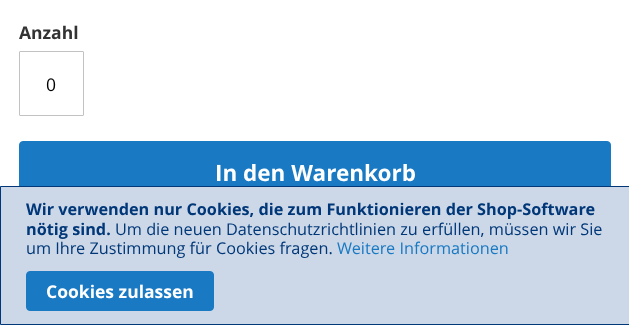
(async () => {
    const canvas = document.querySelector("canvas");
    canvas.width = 629;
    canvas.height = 325;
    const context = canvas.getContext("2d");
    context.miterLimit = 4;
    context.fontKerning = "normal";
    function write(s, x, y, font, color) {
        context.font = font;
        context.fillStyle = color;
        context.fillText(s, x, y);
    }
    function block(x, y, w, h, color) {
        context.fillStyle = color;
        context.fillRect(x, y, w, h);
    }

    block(0, 0, 629, 325, "rgb(255, 255, 255)");
    write("Anzahl", 19, 39, "bold 17.5px Open Sans", "rgb(51, 51, 51)");
    context.beginPath();
    context.roundRect(19.5, 51.5, 64, 64, 0.5);
    context.strokeStyle = "rgb(194, 194, 194)";
    context.stroke();
    write("0", 46, 91, "17.5px Open Sans", "rgb(0, 0, 0)");
    context.fillStyle = "rgb(25, 121, 195)";
    context.beginPath();
    context.roundRect(19.5, 141.5, 591, 64, 3.5);
    context.fill();
    context.strokeStyle = "rgb(25, 121, 195)";
    context.stroke();
    write("In den Warenkorb", 215, 181, "bold 22.5px Open Sans", "rgb(255, 255, 255)");
    context.fillStyle = "rgb(204, 216, 231)";
    context.beginPath();
    context.rect(0.5, 186.5, 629, 138);
    context.fill();
    context.strokeStyle = "rgb(0, 55, 120)";
    context.stroke();
    write("Wir verwenden nur Cookies, die zum Funktionieren der Shop-Software", 26, 215, "bold 16.25px Open Sans", "rgb(0, 55, 120)");
    write("nötig sind.", 26, 235, "bold 16.25px Open Sans", "rgb(0, 55, 120)");
    write("Um die neuen Datenschutzrichtlinien zu erfüllen, müssen wir Sie", 115, 235, "16.25px Open Sans", "rgb(0, 55, 120)");
    write("um Ihre Zustimmung für Cookies fragen.", 26, 254, "16.25px Open Sans", "rgb(0, 55, 120)");
    write("Weitere Informationen", 337, 254, "16.25px Open Sans", "rgb(25, 121, 195)");
    context.beginPath();
    context.roundRect(26.5, 271.5, 187, 39, 3.5);
    context.fill();
    context.strokeStyle = "rgb(25, 121, 195)";
    context.stroke();
    write("Cookies zulassen", 46, 298, "bold 17.5px Open Sans", "rgb(255, 255, 255)");
})();
